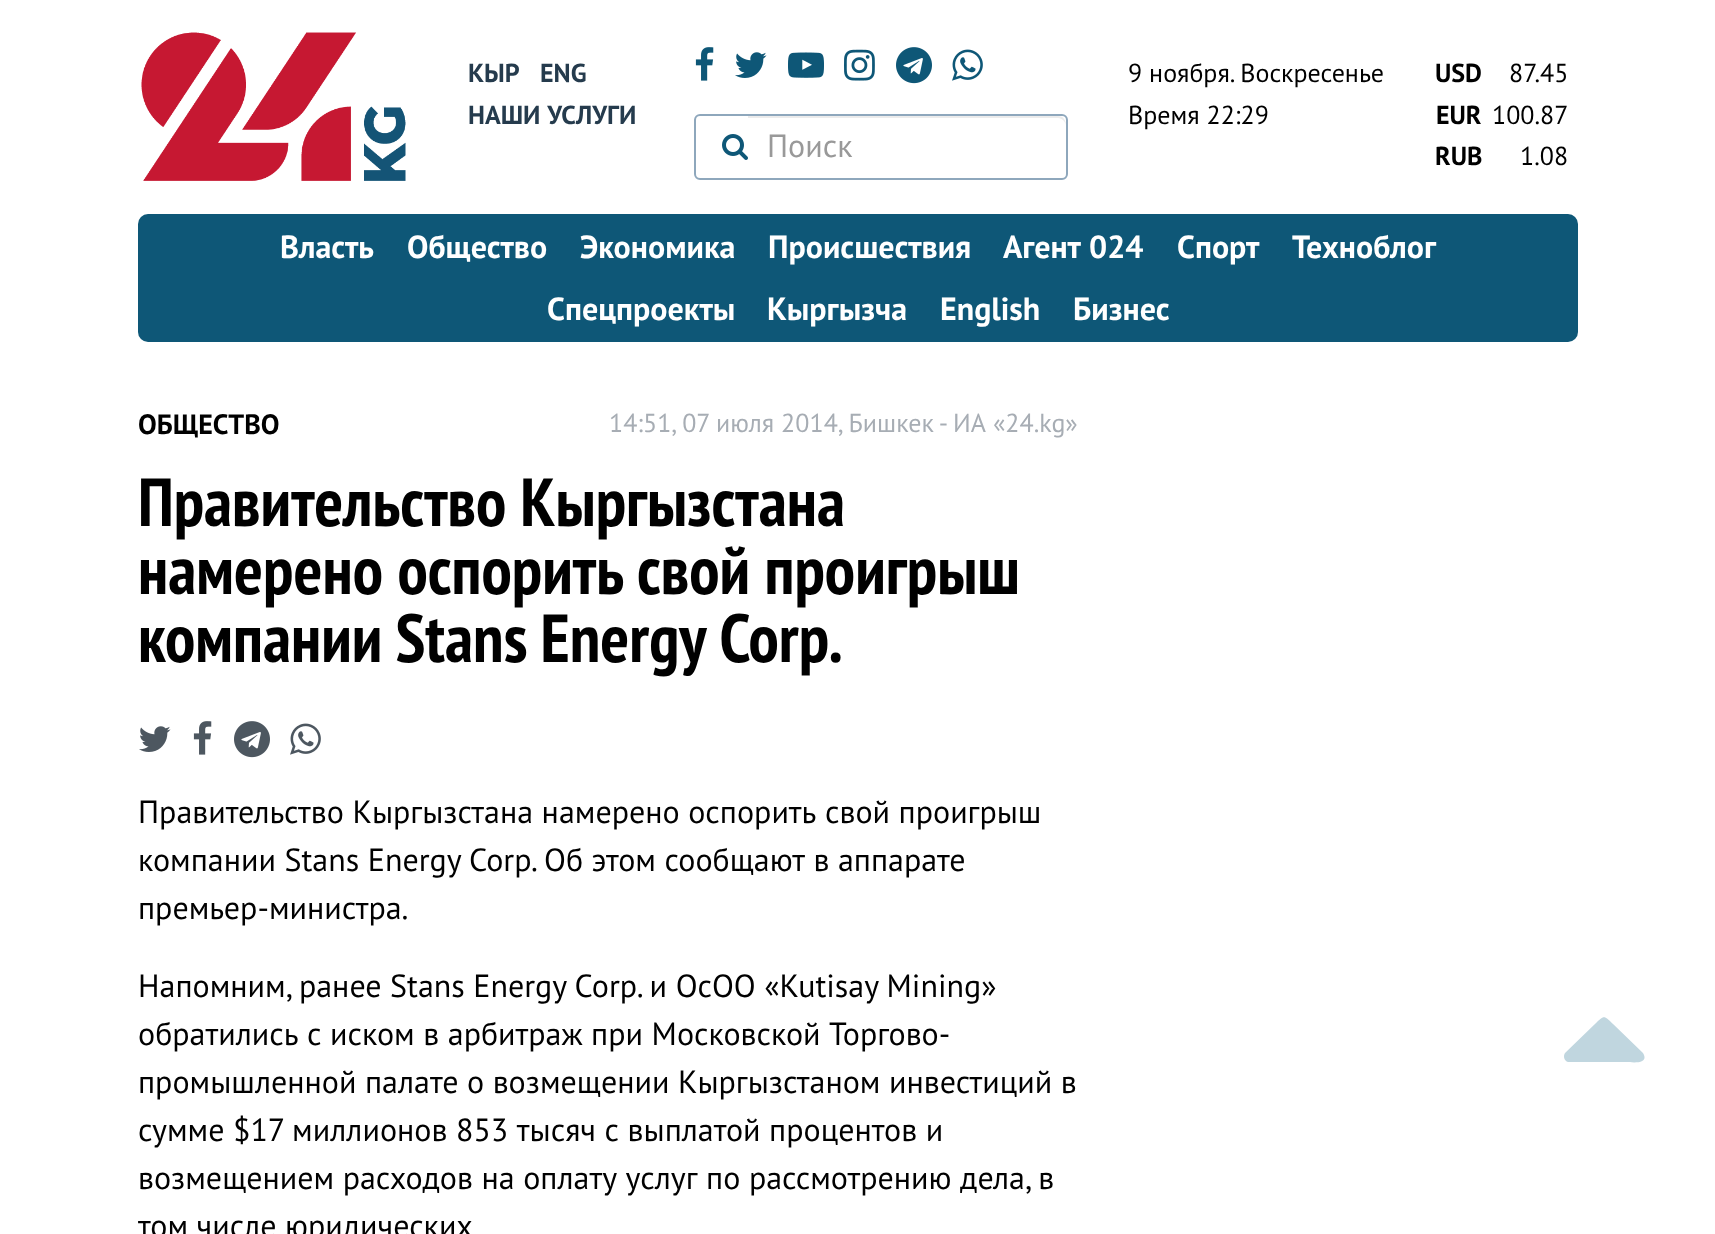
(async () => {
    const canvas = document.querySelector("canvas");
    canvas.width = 1715;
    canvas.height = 1234;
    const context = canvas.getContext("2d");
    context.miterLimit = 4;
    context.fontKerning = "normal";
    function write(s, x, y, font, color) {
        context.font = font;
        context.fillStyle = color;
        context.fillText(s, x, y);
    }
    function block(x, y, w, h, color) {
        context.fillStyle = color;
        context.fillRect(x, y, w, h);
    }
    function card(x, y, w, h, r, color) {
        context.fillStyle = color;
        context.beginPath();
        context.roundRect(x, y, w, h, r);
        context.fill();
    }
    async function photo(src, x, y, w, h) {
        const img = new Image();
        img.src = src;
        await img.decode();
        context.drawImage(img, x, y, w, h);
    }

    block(0, 0, 1715, 1234, "rgb(255, 255, 255)");
    await photo("media/1.png", 141, 32, 265, 149);
    write("КЫР", 468, 82, "bold 26px PT Sans", "rgb(37, 59, 77)");
    write("ENG", 540, 82, "bold 26px PT Sans", "rgb(37, 59, 77)");
    context.wordSpacing = "1px";
    write("НАШИ УСЛУГИ", 468, 124, "bold 26px PT Sans", "rgb(37, 59, 77)");
    await photo("media/2.png", 695, 47, 19, 34);
    await photo("media/3.png", 735, 52, 32, 26);
    await photo("media/4.png", 788, 52, 36, 26);
    await photo("media/5.png", 844, 49, 31, 32);
    await photo("media/6.png", 896, 47, 36, 37);
    await photo("media/7.png", 952, 49, 31, 32);
    context.beginPath();
    context.roundRect(695, 115, 372, 64, 5);
    context.strokeStyle = "rgb(142, 167, 188)";
    context.lineWidth = 2;
    context.stroke();
    await photo("media/8.png", 722, 134, 26, 26);
    context.fillStyle = "rgb(236, 236, 236)";
    context.beginPath();
    context.moveTo(748, 118);
    context.lineTo(1058, 118);
    context.bezierCurveTo(1062, 118, 1066, 122, 1066, 126);
    context.bezierCurveTo(1066, 121, 1064, 116, 1058, 116);
    context.lineTo(748, 116);
    context.closePath();
    context.fill();
    context.wordSpacing = "0px";
    write("Поиск", 767, 157, "32px PT Sans", "rgb(153, 153, 153)");
    write("9 ноября. Воскресенье", 1128, 82, "26px PT Sans", "rgb(0, 0, 0)");
    write("Время 22:29", 1128, 124, "26px PT Sans", "rgb(0, 0, 0)");
    write("USD", 1435, 82, "bold 26px PT Sans", "rgb(0, 0, 0)");
    write("87.45", 1509, 82, "26px PT Sans", "rgb(0, 0, 0)");
    write("EUR", 1436, 124, "bold 26px PT Sans", "rgb(0, 0, 0)");
    write("100.87", 1492, 124, "26px PT Sans", "rgb(0, 0, 0)");
    write("RUB", 1435, 165, "bold 26px PT Sans", "rgb(0, 0, 0)");
    write("1.08", 1520, 165, "26px PT Sans", "rgb(0, 0, 0)");
    card(138, 214, 1440, 128, 10, "rgb(14, 87, 119)");
    write("Власть", 280, 258, "bold 32px PT Sans", "rgb(255, 255, 255)");
    write("Общество", 407, 258, "bold 32px PT Sans", "rgb(255, 255, 255)");
    write("Экономика", 580, 258, "bold 32px PT Sans", "rgb(255, 255, 255)");
    write("Происшествия", 768, 258, "bold 32px PT Sans", "rgb(255, 255, 255)");
    context.wordSpacing = "1px";
    write("Агент 024", 1003, 258, "bold 32px PT Sans", "rgb(255, 255, 255)");
    context.wordSpacing = "0px";
    write("Спорт", 1177, 258, "bold 32px PT Sans", "rgb(255, 255, 255)");
    write("Техноблог", 1292, 258, "bold 32px PT Sans", "rgb(255, 255, 255)");
    write("Спецпроекты", 547, 320, "bold 32px PT Sans", "rgb(255, 255, 255)");
    write("Кыргызча", 767, 320, "bold 32px PT Sans", "rgb(255, 255, 255)");
    write("English", 940, 320, "bold 32px PT Sans", "rgb(255, 255, 255)");
    write("Бизнес", 1073, 320, "bold 32px PT Sans", "rgb(255, 255, 255)");
    write("ОБЩЕСТВО", 138, 434, "bold 28px PT Sans", "rgb(0, 0, 0)");
    write("14:51, 07 июля 2014, Бишкек - ИА «24.kg»", 609, 432, "26px PT Sans", "rgb(167, 173, 180)");
    write("Правительство Кыргызстана", 138, 526, "bold 68px PT Sans Narrow", "rgb(0, 0, 0)");
    context.wordSpacing = "0.5px";
    write("намерено оспорить свой проигрыш", 138, 594, "bold 68px PT Sans Narrow", "rgb(0, 0, 0)");
    context.wordSpacing = "-1px";
    write("компании Stans Energy Corp.", 138, 662, "bold 68px PT Sans Narrow", "rgb(0, 0, 0)");
    await photo("media/9.png", 139, 726, 32, 26);
    await photo("media/10.png", 193, 721, 19, 34);
    await photo("media/11.png", 234, 721, 36, 37);
    await photo("media/12.png", 290, 723, 31, 32);
    context.wordSpacing = "0px";
    write("Правительство Кыргызстана намерено оспорить свой проигрыш", 138, 823, "32px PT Sans", "rgb(0, 0, 0)");
    write("компании Stans Energy Corp. Об этом сообщают в аппарате", 138, 871, "32px PT Sans", "rgb(0, 0, 0)");
    write("премьер-министра.", 138, 919, "32px PT Sans", "rgb(0, 0, 0)");
    write("Напомним, ранее Stans Energy Corp. и ОсОО «Kutisay Mining»", 138, 997, "32px PT Sans", "rgb(0, 0, 0)");
    write("обратились с иском в арбитраж при Московской Торгово-", 138, 1045, "32px PT Sans", "rgb(0, 0, 0)");
    write("промышленной палате о возмещении Кыргызстаном инвестиций в", 138, 1093, "32px PT Sans", "rgb(0, 0, 0)");
    write("сумме $17 миллионов 853 тысяч с выплатой процентов и", 138, 1141, "32px PT Sans", "rgb(0, 0, 0)");
    write("возмещением расходов на оплату услуг по рассмотрению дела, в", 138, 1189, "32px PT Sans", "rgb(0, 0, 0)");
    write("том числе юридических", 138, 1237, "32px PT Sans", "rgb(0, 0, 0)");
    context.fillStyle = "rgb(192, 214, 223)";
    context.beginPath();
    context.moveTo(1643, 1053);
    context.lineTo(1644, 1055);
    context.bezierCurveTo(1648, 1065, 1629, 1062, 1627, 1062);
    context.lineTo(1568, 1062);
    context.bezierCurveTo(1564, 1061, 1563, 1056, 1565, 1053);
    context.lineTo(1595, 1024);
    context.bezierCurveTo(1604, 1015, 1604, 1015, 1613, 1024);
    context.closePath();
    context.fill();
})();
